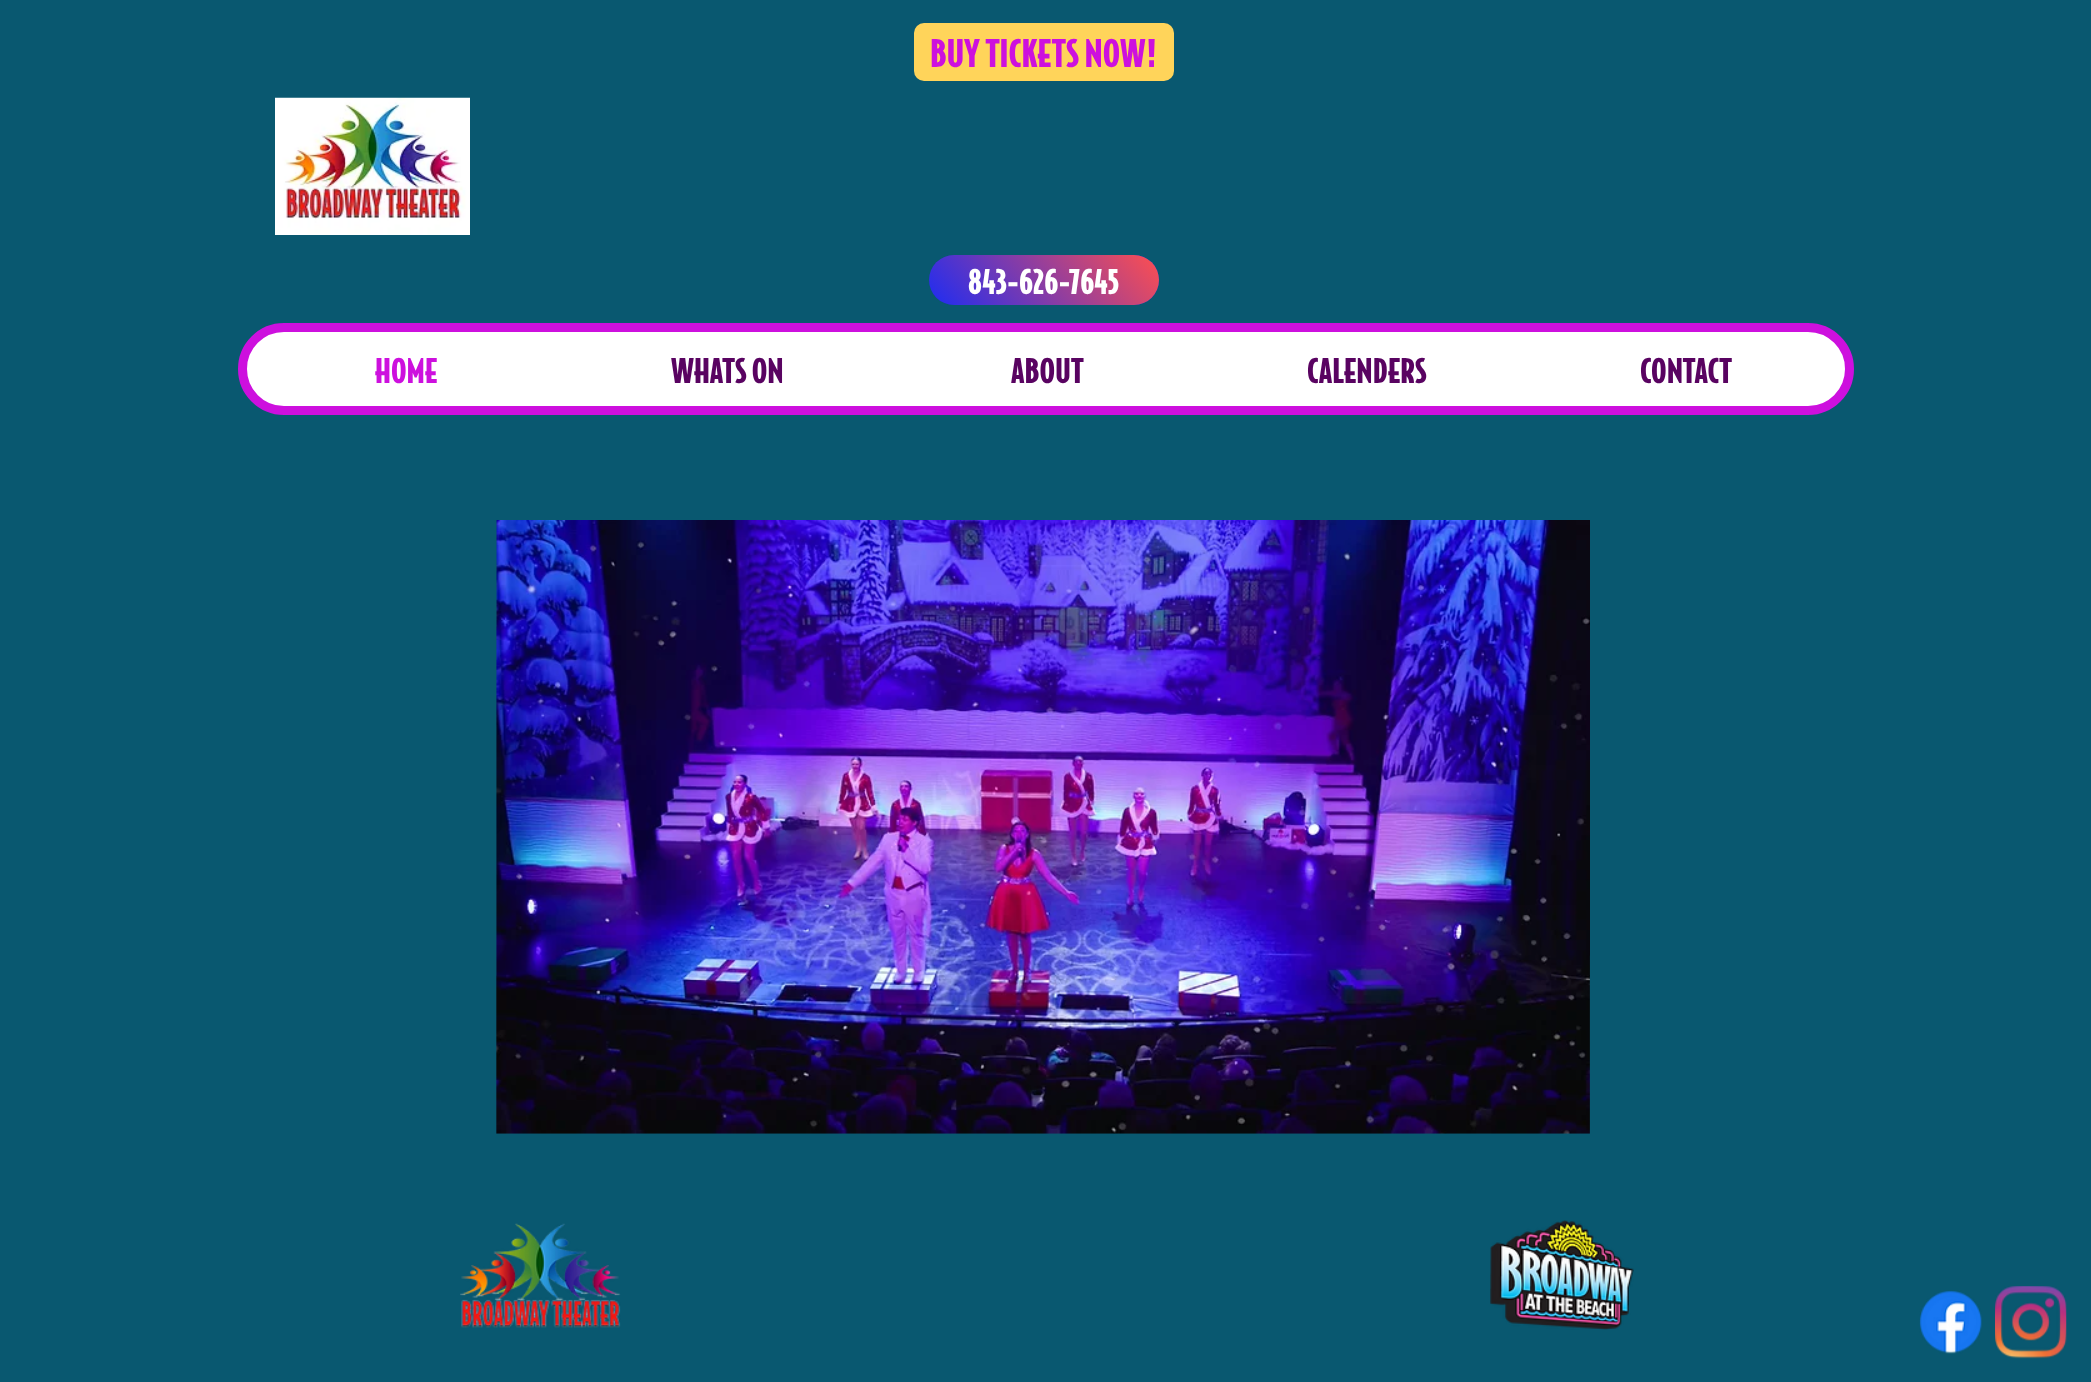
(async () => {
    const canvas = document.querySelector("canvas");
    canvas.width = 2091;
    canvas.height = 1382;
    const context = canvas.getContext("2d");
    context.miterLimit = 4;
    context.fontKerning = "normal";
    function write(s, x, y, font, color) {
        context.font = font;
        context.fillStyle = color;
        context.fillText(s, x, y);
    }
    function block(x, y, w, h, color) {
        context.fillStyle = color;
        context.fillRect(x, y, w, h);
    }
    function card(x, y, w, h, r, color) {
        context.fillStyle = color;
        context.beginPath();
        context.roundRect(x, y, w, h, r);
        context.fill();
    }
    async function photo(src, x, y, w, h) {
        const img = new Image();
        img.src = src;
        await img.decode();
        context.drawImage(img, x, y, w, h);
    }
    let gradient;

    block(0, 0, 2091, 1382, "rgb(9, 88, 112)");
    card(914, 23, 260, 58, 10, "rgb(255, 212, 90)");
    write("BUY TICKETS NOW!", 930, 67, "900 36.25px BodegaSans", "rgb(205, 16, 222)");
    await photo("media/1.png", 275, 97, 195, 138);
    card(929, 255, 230, 50, 25, "rgb(29, 44, 243)");
    gradient = context.createLinearGradient(1122, 212, 966, 348);
    gradient.addColorStop(0, "rgb(255, 79, 79)");
    gradient.addColorStop(1, "rgba(255, 79, 79, 0)");
    context.fillStyle = gradient;
    context.beginPath();
    context.roundRect(929, 255, 230, 50, 25);
    context.fill();
    write("843-626-7645", 968, 294, "900 32.5px BodegaSans", "rgb(255, 255, 255)");
    context.beginPath();
    context.roundRect(242.5, 327.5, 1607, 83, 41.5);
    context.fill();
    context.strokeStyle = "rgb(205, 16, 222)";
    context.lineWidth = 9;
    context.stroke();
    write("HOME", 375, 383, "900 32.5px BodegaSans", "rgb(205, 16, 222)");
    write("WHATS ON", 671, 383, "900 32.5px BodegaSans", "rgb(89, 3, 97)");
    write("ABOUT", 1011, 383, "900 32.5px BodegaSans", "rgb(89, 3, 97)");
    write("CALENDERS", 1307, 383, "900 32.5px BodegaSans", "rgb(89, 3, 97)");
    write("CONTACT", 1640, 383, "900 32.5px BodegaSans", "rgb(89, 3, 97)");
    await photo("media/2.png", 496, 520, 1094, 614);
    await photo("media/3.png", 460, 1223, 161, 105);
    await photo("media/4.png", 1490, 1220, 144, 110);
    await photo("media/5.png", 1919, 1290, 63, 64);
    await photo("media/6.png", 1995, 1286, 72, 73);
})();
